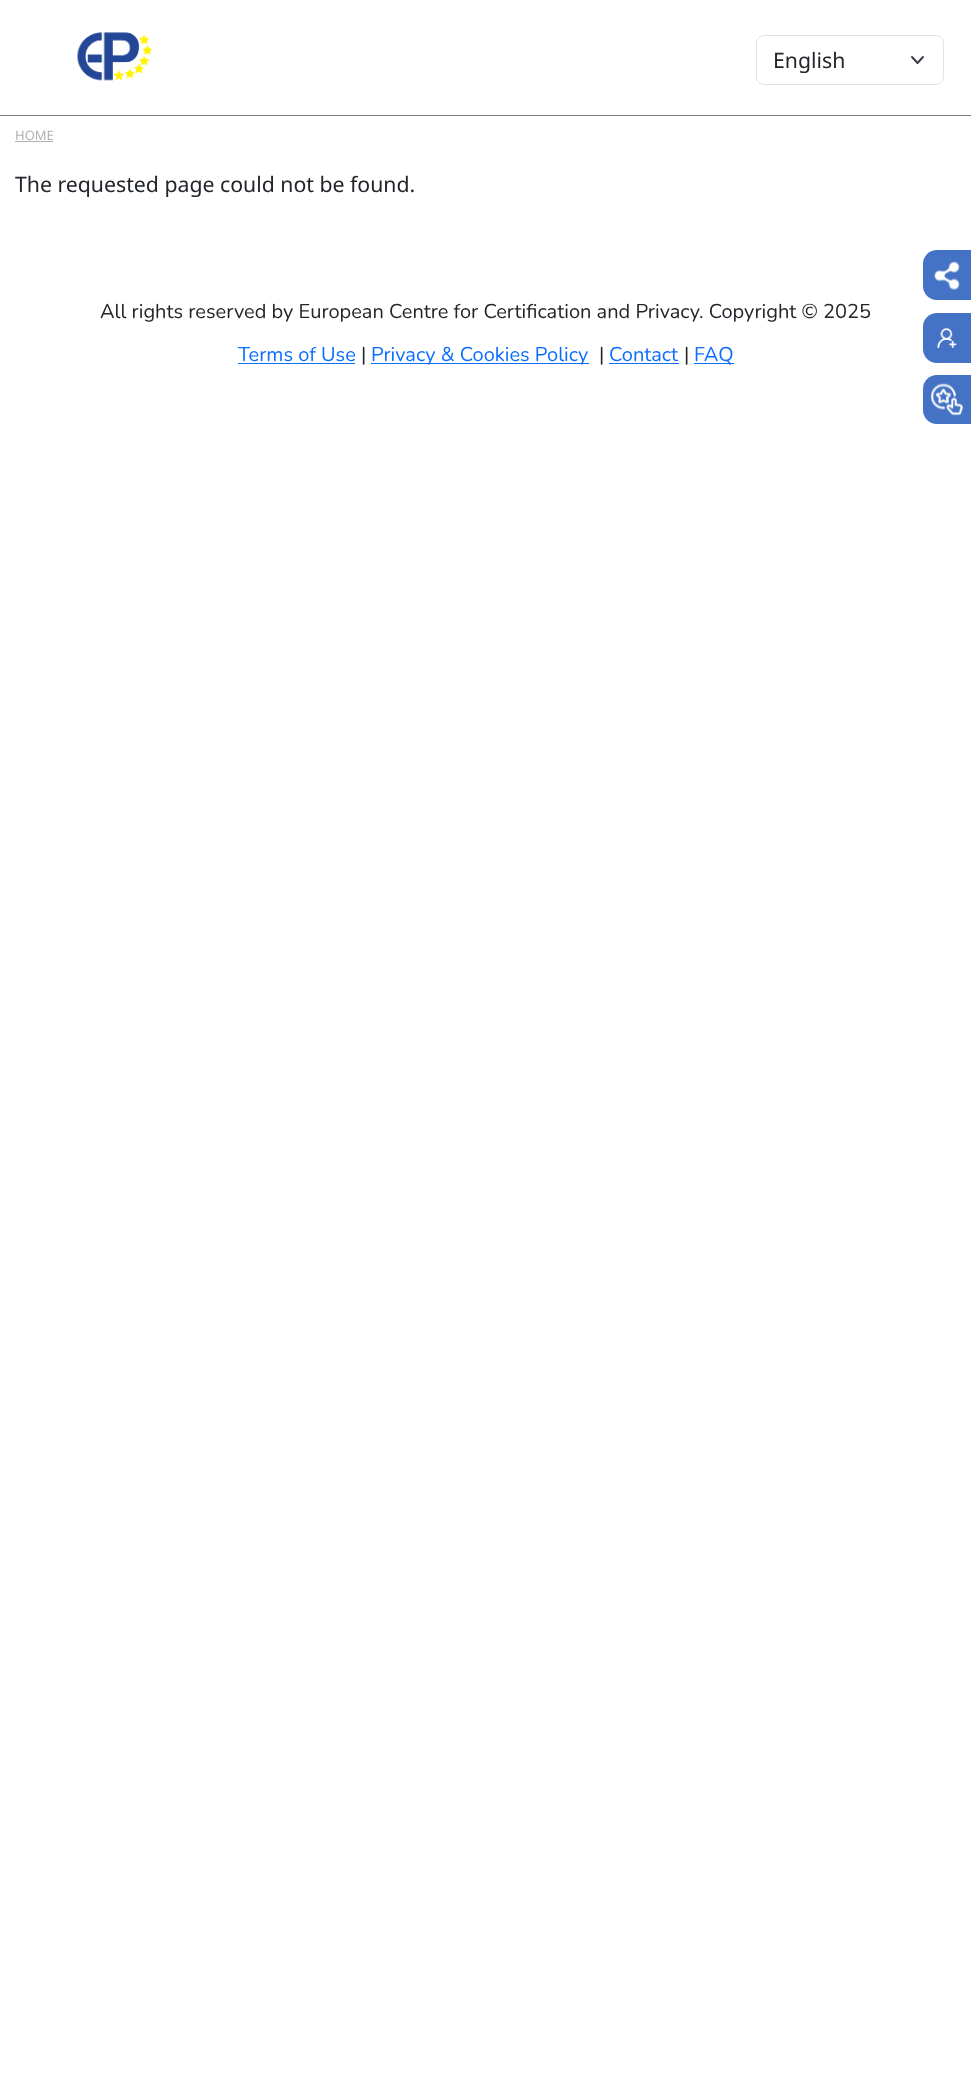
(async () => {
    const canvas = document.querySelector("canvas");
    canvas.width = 971;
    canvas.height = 2094;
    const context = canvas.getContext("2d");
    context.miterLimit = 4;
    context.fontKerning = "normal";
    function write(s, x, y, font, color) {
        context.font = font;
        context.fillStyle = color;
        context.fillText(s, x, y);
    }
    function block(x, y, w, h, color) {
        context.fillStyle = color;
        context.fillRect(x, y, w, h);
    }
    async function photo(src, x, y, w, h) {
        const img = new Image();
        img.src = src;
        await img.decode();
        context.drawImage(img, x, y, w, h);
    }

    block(0, 0, 971, 2094, "rgb(255, 255, 255)");
    block(0, 115, 971, 1, "rgb(128, 128, 128)");
    await photo("media/1.png", 77, 32, 76, 49);
    context.beginPath();
    context.moveTo(912, 57);
    context.lineTo(917.5, 63);
    context.lineTo(923, 57);
    context.strokeStyle = "rgb(52, 58, 64)";
    context.lineWidth = 1.9;
    context.lineCap = "round";
    context.lineJoin = "round";
    context.stroke();
    context.beginPath();
    context.roundRect(756.5, 35.5, 187, 49, 7.5);
    context.strokeStyle = "rgb(222, 226, 230)";
    context.lineWidth = 1;
    context.lineJoin = "miter";
    context.stroke();
    write("English", 773, 68, "21.25px Noto Sans", "rgb(33, 37, 41)");
    write("HOME", 15, 140, "13px Noto Sans", "rgb(177, 177, 177)");
    block(15, 141, 38, 1, "rgb(177, 177, 177)");
    write("The requested page could not be found.", 15, 192, "21.25px Noto Sans", "rgb(33, 37, 41)");
    context.fillStyle = "rgb(68, 114, 196)";
    context.beginPath();
    context.roundRect(923, 375, 48, 49, [14, 0, 0, 14]);
    context.fill();
    await photo("media/2.png", 930, 383, 33, 33);
    write("All rights reserved by European Centre for Certification and Privacy. Copyright © 2025", 100, 318, "20px Nunito", "rgb(33, 37, 41)");
    write("Terms of Use", 238, 361, "20px Nunito", "rgb(13, 110, 253)");
    block(238, 363, 117, 1, "rgb(13, 110, 253)");
    write("|", 361, 361, "20px Nunito", "rgb(33, 37, 41)");
    block(371, 363, 218, 1, "rgb(13, 110, 253)");
    write("Privacy & Cookies Policy", 371, 361, "20px Nunito", "rgb(13, 110, 253)");
    write("|", 599, 361, "20px Nunito", "rgb(33, 37, 41)");
    write("Contact", 609, 361, "20px Nunito", "rgb(13, 110, 253)");
    block(609, 363, 70, 1, "rgb(13, 110, 253)");
    write("|", 684, 361, "20px Nunito", "rgb(33, 37, 41)");
    block(694, 363, 40, 1, "rgb(13, 110, 253)");
    write("FAQ", 694, 361, "20px Nunito", "rgb(13, 110, 253)");
    context.fillStyle = "rgb(68, 114, 196)";
    context.beginPath();
    context.roundRect(923, 250, 48, 50, [14, 0, 0, 14]);
    context.fill();
    await photo("media/3.png", 934, 261, 26, 30);
    context.beginPath();
    context.roundRect(923, 313, 48, 50, [14, 0, 0, 14]);
    context.fill();
    await photo("media/4.png", 937, 327, 20, 22);
})();
